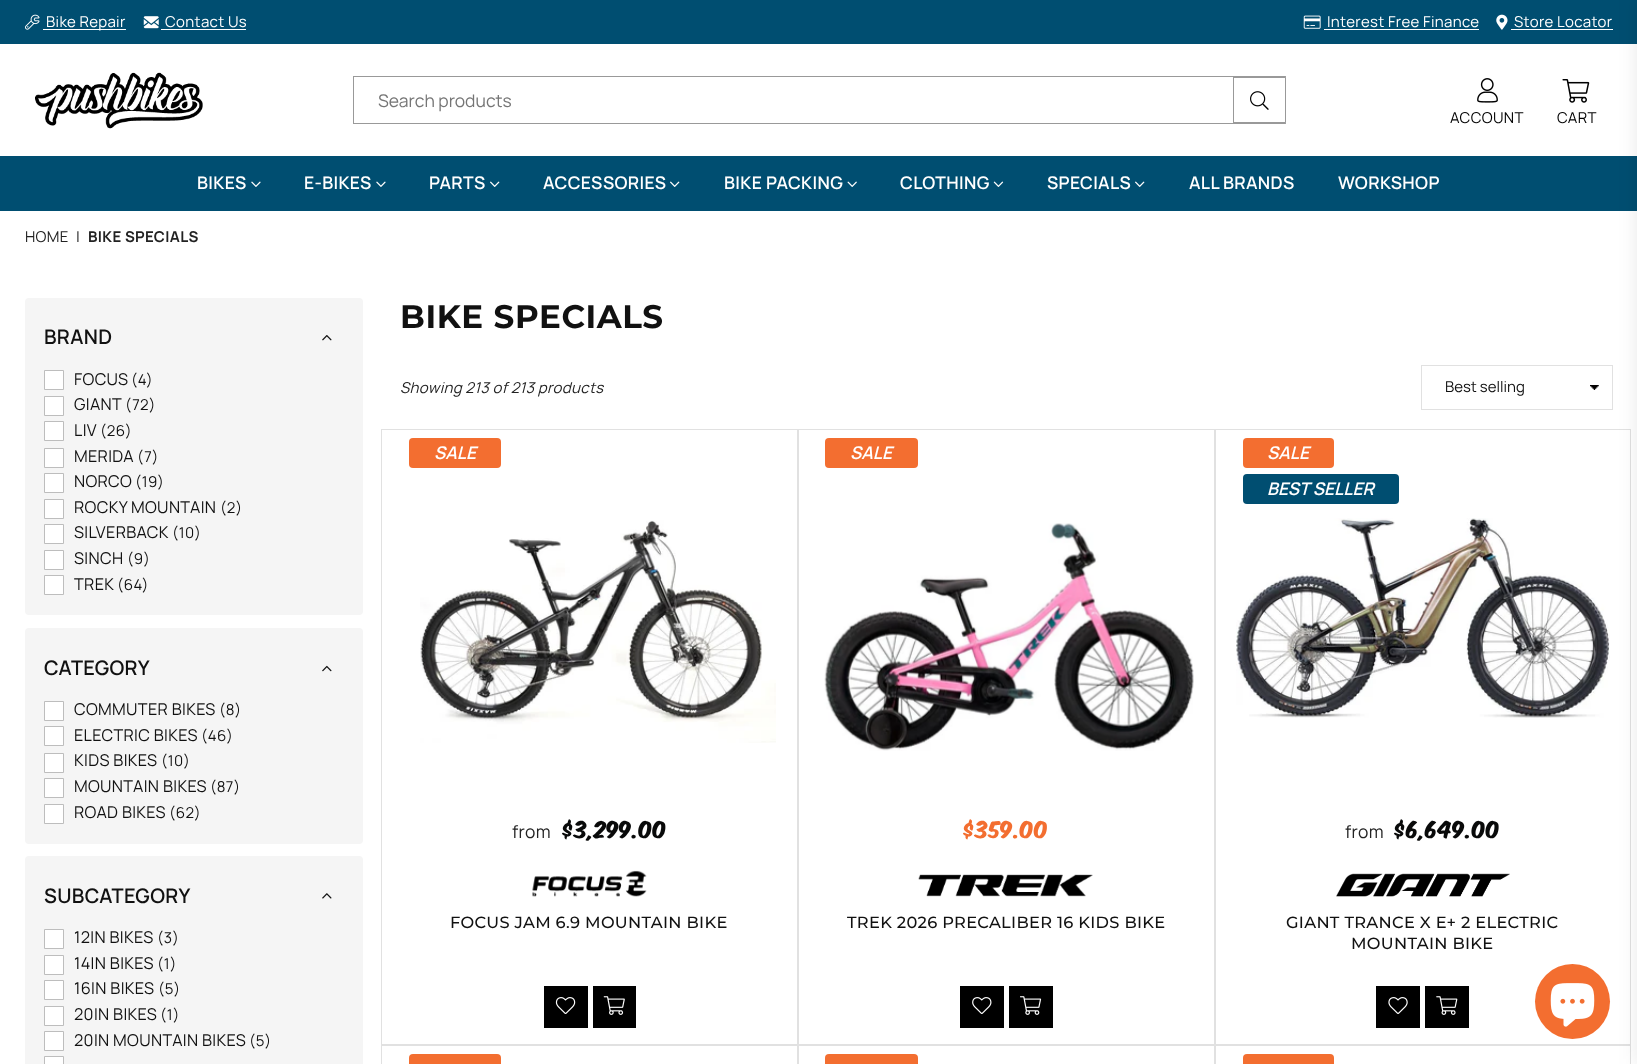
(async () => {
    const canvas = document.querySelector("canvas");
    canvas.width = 1637;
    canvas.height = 1064;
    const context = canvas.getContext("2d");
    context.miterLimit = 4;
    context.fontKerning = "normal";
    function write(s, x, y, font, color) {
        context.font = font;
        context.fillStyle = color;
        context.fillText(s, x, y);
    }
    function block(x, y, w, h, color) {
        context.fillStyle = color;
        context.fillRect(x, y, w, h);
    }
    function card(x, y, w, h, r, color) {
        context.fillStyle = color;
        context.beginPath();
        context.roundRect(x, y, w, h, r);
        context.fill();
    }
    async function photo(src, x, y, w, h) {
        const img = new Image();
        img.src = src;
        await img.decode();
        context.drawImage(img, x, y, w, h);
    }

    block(0, 0, 1637, 1064, "rgb(255, 255, 255)");
    block(0, 0, 1637, 44, "rgb(0, 78, 113)");
    await photo("media/1.png", 25, 14, 15, 16);
    block(43, 29, 83, 1, "rgb(255, 255, 255)");
    context.letterSpacing = "0.35px";
    write("Bike Repair", 46, 27, "15px Manrope", "rgb(255, 255, 255)");
    await photo("media/2.png", 143, 16, 16, 13);
    write("Contact Us", 165, 27, "15px Manrope", "rgb(255, 255, 255)");
    block(161, 29, 85, 1, "rgb(255, 255, 255)");
    await photo("media/3.png", 1303, 15, 18, 14);
    write("Interest Free Finance", 1327, 27, "15px Manrope", "rgb(255, 255, 255)");
    block(1324, 29, 155, 1, "rgb(255, 255, 255)");
    await photo("media/4.png", 1496, 14, 12, 16);
    write("Store Locator", 1514, 27, "15px Manrope", "rgb(255, 255, 255)");
    block(1511, 29, 102, 1, "rgb(255, 255, 255)");
    block(0, 156, 1637, 55, "rgb(0, 78, 113)");
    await photo("media/16.png", 1590, 385, 9, 5);
    context.strokeStyle = "rgb(225, 225, 225)";
    context.strokeRect(1421.5, 365.5, 191, 44);
    context.strokeRect(1215.5, 429.5, 415, 615);
    await photo("media/25.png", 1236, 518, 374, 200);
    context.strokeRect(1215.5, 1045.5, 415, 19);
    context.fillStyle = "rgb(243, 110, 48)";
    context.beginPath();
    context.arc(1572.5, 1001.5, 37.5, 0, Math.PI * 2);
    context.fill();
    context.fillStyle = "rgba(0, 0, 0, 0.1)";
    context.filter = "blur(9.5px)";
    context.beginPath();
    context.rect(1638, 0, 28, 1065);
    context.fill();
    context.filter = "none";
    await photo("media/5.png", 35, 72, 168, 57);
    context.strokeStyle = "rgb(153, 153, 153)";
    context.strokeRect(353.5, 76.5, 880, 47);
    context.letterSpacing = "0px";
    write("Search products", 378, 107, "17.5px Manrope", "rgb(117, 117, 117)");
    context.fillStyle = "rgb(153, 153, 153)";
    context.beginPath();
    context.moveTo(1234, 76);
    context.lineTo(1286, 76);
    context.lineTo(1285, 78);
    context.lineTo(1234, 78);
    context.closePath();
    context.fill();
    context.fillStyle = "rgba(0, 0, 0, 0.4)";
    context.beginPath();
    context.moveTo(1286, 76);
    context.lineTo(1286, 124);
    context.lineTo(1285, 122);
    context.lineTo(1285, 78);
    context.closePath();
    context.fill();
    context.beginPath();
    context.moveTo(1286, 124);
    context.lineTo(1234, 124);
    context.lineTo(1234, 122);
    context.lineTo(1285, 122);
    context.closePath();
    context.fill();
    await photo("media/6.png", 1250, 91, 19, 19);
    await photo("media/7.png", 1477, 78, 21, 25);
    context.letterSpacing = "0.35px";
    write("ACCOUNT", 1450, 123, "15px Manrope", "rgb(0, 0, 0)");
    await photo("media/8.png", 1562, 79, 28, 24);
    write("CART", 1557, 123, "15px Manrope", "rgb(0, 0, 0)");
    write("BIKES", 197, 189, "600 17.5px Manrope", "rgb(255, 255, 255)");
    await photo("media/9.png", 251, 181, 10, 6);
    write("E-BIKES", 304, 189, "600 17.5px Manrope", "rgb(255, 255, 255)");
    await photo("media/9.png", 376, 181, 10, 6);
    write("PARTS", 429, 189, "600 17.5px Manrope", "rgb(255, 255, 255)");
    await photo("media/10.png", 490, 181, 10, 6);
    write("ACCESSORIES", 543, 189, "600 17.5px Manrope", "rgb(255, 255, 255)");
    await photo("media/10.png", 670, 181, 10, 6);
    write("BIKE PACKING", 724, 189, "600 17.5px Manrope", "rgb(255, 255, 255)");
    await photo("media/11.png", 847, 181, 10, 6);
    write("CLOTHING", 900, 189, "600 17.5px Manrope", "rgb(255, 255, 255)");
    await photo("media/12.png", 993, 181, 11, 6);
    write("SPECIALS", 1047, 189, "600 17.5px Manrope", "rgb(255, 255, 255)");
    await photo("media/10.png", 1135, 181, 10, 6);
    write("ALL BRANDS", 1189, 189, "600 17.5px Manrope", "rgb(255, 255, 255)");
    write("WORKSHOP", 1338, 189, "600 17.5px Manrope", "rgb(255, 255, 255)");
    write("HOME", 25, 242, "15px Manrope", "rgb(34, 34, 34)");
    write("|", 76, 242, "15px Manrope", "rgb(34, 34, 34)");
    write("BIKE SPECIALS", 88, 242, "bold 15px Manrope", "rgb(34, 34, 34)");
    card(25, 298, 338, 317, 4, "rgb(245, 245, 245)");
    write("BRAND", 44, 344, "600 20px Manrope", "rgb(17, 17, 17)");
    await photo("media/13.png", 322, 335, 10, 6);
    context.fillStyle = "rgb(255, 255, 255)";
    context.beginPath();
    context.rect(44.5, 370.5, 19, 19);
    context.fill();
    context.strokeStyle = "rgb(189, 189, 189)";
    context.stroke();
    write("FOCUS", 74, 385, "16.25px Manrope", "rgb(17, 17, 17)");
    write("(4)", 131, 385, "15px Manrope", "rgb(17, 17, 17)");
    context.fillStyle = "rgb(255, 255, 255)";
    context.beginPath();
    context.rect(44.5, 396.5, 19, 19);
    context.fill();
    context.stroke();
    write("GIANT", 74, 410, "16.25px Manrope", "rgb(17, 17, 17)");
    write("(72)", 125, 410, "15px Manrope", "rgb(17, 17, 17)");
    context.fillStyle = "rgb(255, 255, 255)";
    context.beginPath();
    context.rect(44.5, 421.5, 19, 19);
    context.fill();
    context.stroke();
    write("LIV", 74, 436, "16.25px Manrope", "rgb(17, 17, 17)");
    write("(26)", 100, 436, "15px Manrope", "rgb(17, 17, 17)");
    context.fillStyle = "rgb(255, 255, 255)";
    context.beginPath();
    context.rect(44.5, 448.5, 19, 19);
    context.fill();
    context.stroke();
    write("MERIDA", 74, 462, "16.25px Manrope", "rgb(17, 17, 17)");
    write("(7)", 137, 462, "15px Manrope", "rgb(17, 17, 17)");
    context.fillStyle = "rgb(255, 255, 255)";
    context.beginPath();
    context.rect(44.5, 473.5, 19, 19);
    context.fill();
    context.stroke();
    write("NORCO", 74, 487, "16.25px Manrope", "rgb(17, 17, 17)");
    write("(19)", 135, 487, "15px Manrope", "rgb(17, 17, 17)");
    context.fillStyle = "rgb(255, 255, 255)";
    context.beginPath();
    context.rect(44.5, 499.5, 19, 19);
    context.fill();
    context.stroke();
    write("ROCKY MOUNTAIN", 74, 513, "16.25px Manrope", "rgb(17, 17, 17)");
    write("(2)", 220, 513, "15px Manrope", "rgb(17, 17, 17)");
    context.fillStyle = "rgb(255, 255, 255)";
    context.beginPath();
    context.rect(44.5, 524.5, 19, 19);
    context.fill();
    context.stroke();
    write("SILVERBACK", 74, 538, "16.25px Manrope", "rgb(17, 17, 17)");
    write("(10)", 172, 538, "15px Manrope", "rgb(17, 17, 17)");
    context.fillStyle = "rgb(255, 255, 255)";
    context.beginPath();
    context.rect(44.5, 550.5, 19, 19);
    context.fill();
    context.stroke();
    write("SINCH", 74, 564, "16.25px Manrope", "rgb(17, 17, 17)");
    write("(9)", 127, 564, "15px Manrope", "rgb(17, 17, 17)");
    context.fillStyle = "rgb(255, 255, 255)";
    context.beginPath();
    context.rect(44.5, 575.5, 19, 19);
    context.fill();
    context.stroke();
    write("TREK", 74, 590, "16.25px Manrope", "rgb(17, 17, 17)");
    write("(64)", 117, 590, "15px Manrope", "rgb(17, 17, 17)");
    card(25, 628, 338, 216, 4, "rgb(245, 245, 245)");
    write("CATEGORY", 44, 675, "600 20px Manrope", "rgb(17, 17, 17)");
    await photo("media/14.png", 322, 665, 10, 7);
    context.fillStyle = "rgb(255, 255, 255)";
    context.beginPath();
    context.rect(44.5, 701.5, 19, 19);
    context.fill();
    context.stroke();
    write("COMMUTER BIKES", 74, 715, "16.25px Manrope", "rgb(17, 17, 17)");
    write("(8)", 219, 715, "15px Manrope", "rgb(17, 17, 17)");
    context.fillStyle = "rgb(255, 255, 255)";
    context.beginPath();
    context.rect(44.5, 726.5, 19, 19);
    context.fill();
    context.stroke();
    write("ELECTRIC BIKES", 74, 741, "16.25px Manrope", "rgb(17, 17, 17)");
    write("(46)", 201, 741, "15px Manrope", "rgb(17, 17, 17)");
    context.fillStyle = "rgb(255, 255, 255)";
    context.beginPath();
    context.rect(44.5, 753.5, 19, 19);
    context.fill();
    context.stroke();
    write("KIDS BIKES", 74, 766, "16.25px Manrope", "rgb(17, 17, 17)");
    write("(10)", 161, 766, "15px Manrope", "rgb(17, 17, 17)");
    context.fillStyle = "rgb(255, 255, 255)";
    context.beginPath();
    context.rect(44.5, 778.5, 19, 19);
    context.fill();
    context.stroke();
    write("MOUNTAIN BIKES", 74, 792, "16.25px Manrope", "rgb(17, 17, 17)");
    write("(87)", 210, 792, "15px Manrope", "rgb(17, 17, 17)");
    context.fillStyle = "rgb(255, 255, 255)";
    context.beginPath();
    context.rect(44.5, 804.5, 19, 19);
    context.fill();
    context.stroke();
    write("ROAD BIKES", 74, 818, "16.25px Manrope", "rgb(17, 17, 17)");
    write("(62)", 169, 818, "15px Manrope", "rgb(17, 17, 17)");
    card(25, 856, 338, 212, 4, "rgb(245, 245, 245)");
    write("SUBCATEGORY", 44, 903, "600 20px Manrope", "rgb(17, 17, 17)");
    await photo("media/15.png", 322, 893, 10, 6);
    context.fillStyle = "rgb(255, 255, 255)";
    context.beginPath();
    context.rect(44.5, 929.5, 19, 19);
    context.fill();
    context.stroke();
    write("12IN BIKES", 74, 943, "16.25px Manrope", "rgb(17, 17, 17)");
    write("(3)", 157, 943, "15px Manrope", "rgb(17, 17, 17)");
    context.fillStyle = "rgb(255, 255, 255)";
    context.beginPath();
    context.rect(44.5, 955.5, 19, 19);
    context.fill();
    context.stroke();
    write("14IN BIKES", 74, 969, "16.25px Manrope", "rgb(17, 17, 17)");
    write("(1)", 157, 969, "15px Manrope", "rgb(17, 17, 17)");
    context.fillStyle = "rgb(255, 255, 255)";
    context.beginPath();
    context.rect(44.5, 980.5, 19, 19);
    context.fill();
    context.stroke();
    write("16IN BIKES", 74, 994, "16.25px Manrope", "rgb(17, 17, 17)");
    write("(5)", 158, 994, "15px Manrope", "rgb(17, 17, 17)");
    context.fillStyle = "rgb(255, 255, 255)";
    context.beginPath();
    context.rect(44.5, 1006.5, 19, 19);
    context.fill();
    context.stroke();
    write("20IN BIKES", 74, 1020, "16.25px Manrope", "rgb(17, 17, 17)");
    write("(1)", 160, 1020, "15px Manrope", "rgb(17, 17, 17)");
    context.fillStyle = "rgb(255, 255, 255)";
    context.beginPath();
    context.rect(44.5, 1031.5, 19, 19);
    context.fill();
    context.stroke();
    write("20IN MOUNTAIN BIKES", 74, 1046, "16.25px Manrope", "rgb(17, 17, 17)");
    write("(5)", 249, 1046, "15px Manrope", "rgb(17, 17, 17)");
    context.fillStyle = "rgb(255, 255, 255)";
    context.beginPath();
    context.rect(44.5, 1056.5, 19, 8);
    context.fill();
    context.stroke();
    context.letterSpacing = "0.6px";
    write("BIKE SPECIALS", 400, 328, "bold 32.5px Montserrat", "rgb(17, 17, 17)");
    context.letterSpacing = "0.35px";
    write("Showing 213 of 213 products", 400, 393, "italic 15px Manrope", "rgb(34, 34, 34)");
    context.letterSpacing = "0px";
    write("Best selling", 1445, 392, "15px Manrope", "rgb(17, 17, 17)");
    context.strokeStyle = "rgb(225, 225, 225)";
    context.strokeRect(381.5, 429.5, 416, 615);
    card(409, 438, 92, 30, 4, "rgb(243, 110, 48)");
    write("SALE", 434, 459, "italic 600 17.5px Manrope", "rgb(255, 255, 255)");
    await photo("media/17.png", 420, 520, 356, 223);
    context.letterSpacing = "0.35px";
    write("from", 512, 838, "17.5px Manrope", "rgb(34, 34, 34)");
    write("$3,299.00", 563, 838, "20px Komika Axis", "rgb(9, 10, 10)");
    await photo("media/18.png", 532, 870, 115, 27);
    context.letterSpacing = "0.3px";
    write("FOCUS JAM 6.9 MOUNTAIN BIKE", 450, 928, "500 16.25px Montserrat", "rgb(17, 17, 17)");
    block(544, 986, 44, 42, "rgb(0, 0, 0)");
    await photo("media/19.png", 555, 997, 21, 17);
    block(593, 986, 43, 42, "rgb(0, 0, 0)");
    await photo("media/20.png", 603, 996, 22, 19);
    context.strokeRect(798.5, 429.5, 416, 615);
    card(825, 438, 93, 30, 4, "rgb(243, 110, 48)");
    context.letterSpacing = "0px";
    write("SALE", 850, 459, "italic 600 17.5px Manrope", "rgb(255, 255, 255)");
    await photo("media/21.png", 824, 523, 370, 228);
    context.letterSpacing = "0.35px";
    write("$359.00", 964, 838, "20px Komika Axis", "rgb(243, 110, 48)");
    await photo("media/22.png", 918, 874, 175, 23);
    context.letterSpacing = "0.3px";
    write("TREK 2026 PRECALIBER 16 KIDS BIKE", 847, 928, "500 16.25px Montserrat", "rgb(17, 17, 17)");
    block(960, 986, 44, 42, "rgb(0, 0, 0)");
    await photo("media/23.png", 972, 997, 20, 17);
    block(1009, 986, 44, 42, "rgb(0, 0, 0)");
    await photo("media/24.png", 1020, 996, 22, 19);
    card(1243, 438, 91, 30, 4, "rgb(243, 110, 48)");
    context.letterSpacing = "0px";
    write("SALE", 1267, 459, "italic 600 17.5px Manrope", "rgb(255, 255, 255)");
    card(1243, 474, 156, 30, 4, "rgb(0, 78, 113)");
    write("BEST SELLER", 1267, 495, "italic 600 17.5px Manrope", "rgb(255, 255, 255)");
    context.letterSpacing = "0.35px";
    write("from", 1345, 838, "17.5px Manrope", "rgb(34, 34, 34)");
    write("$6,649.00", 1395, 838, "20px Komika Axis", "rgb(9, 10, 10)");
    await photo("media/26.png", 1336, 873, 174, 24);
    context.letterSpacing = "0.3px";
    write("GIANT TRANCE X E+ 2 ELECTRIC", 1286, 928, "500 16.25px Montserrat", "rgb(17, 17, 17)");
    write("MOUNTAIN BIKE", 1351, 949, "500 16.25px Montserrat", "rgb(17, 17, 17)");
    block(1376, 986, 44, 42, "rgb(0, 0, 0)");
    await photo("media/27.png", 1388, 997, 20, 17);
    block(1425, 986, 44, 42, "rgb(0, 0, 0)");
    await photo("media/28.png", 1436, 996, 22, 19);
    context.strokeRect(381.5, 1045.5, 416, 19);
    card(409, 1054, 92, 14, 4, "rgb(243, 110, 48)");
    context.strokeRect(798.5, 1045.5, 416, 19);
    card(825, 1054, 93, 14, 4, "rgb(243, 110, 48)");
    card(1243, 1054, 91, 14, 4, "rgb(243, 110, 48)");
    await photo("media/29.png", 1550, 983, 45, 44);
})();
